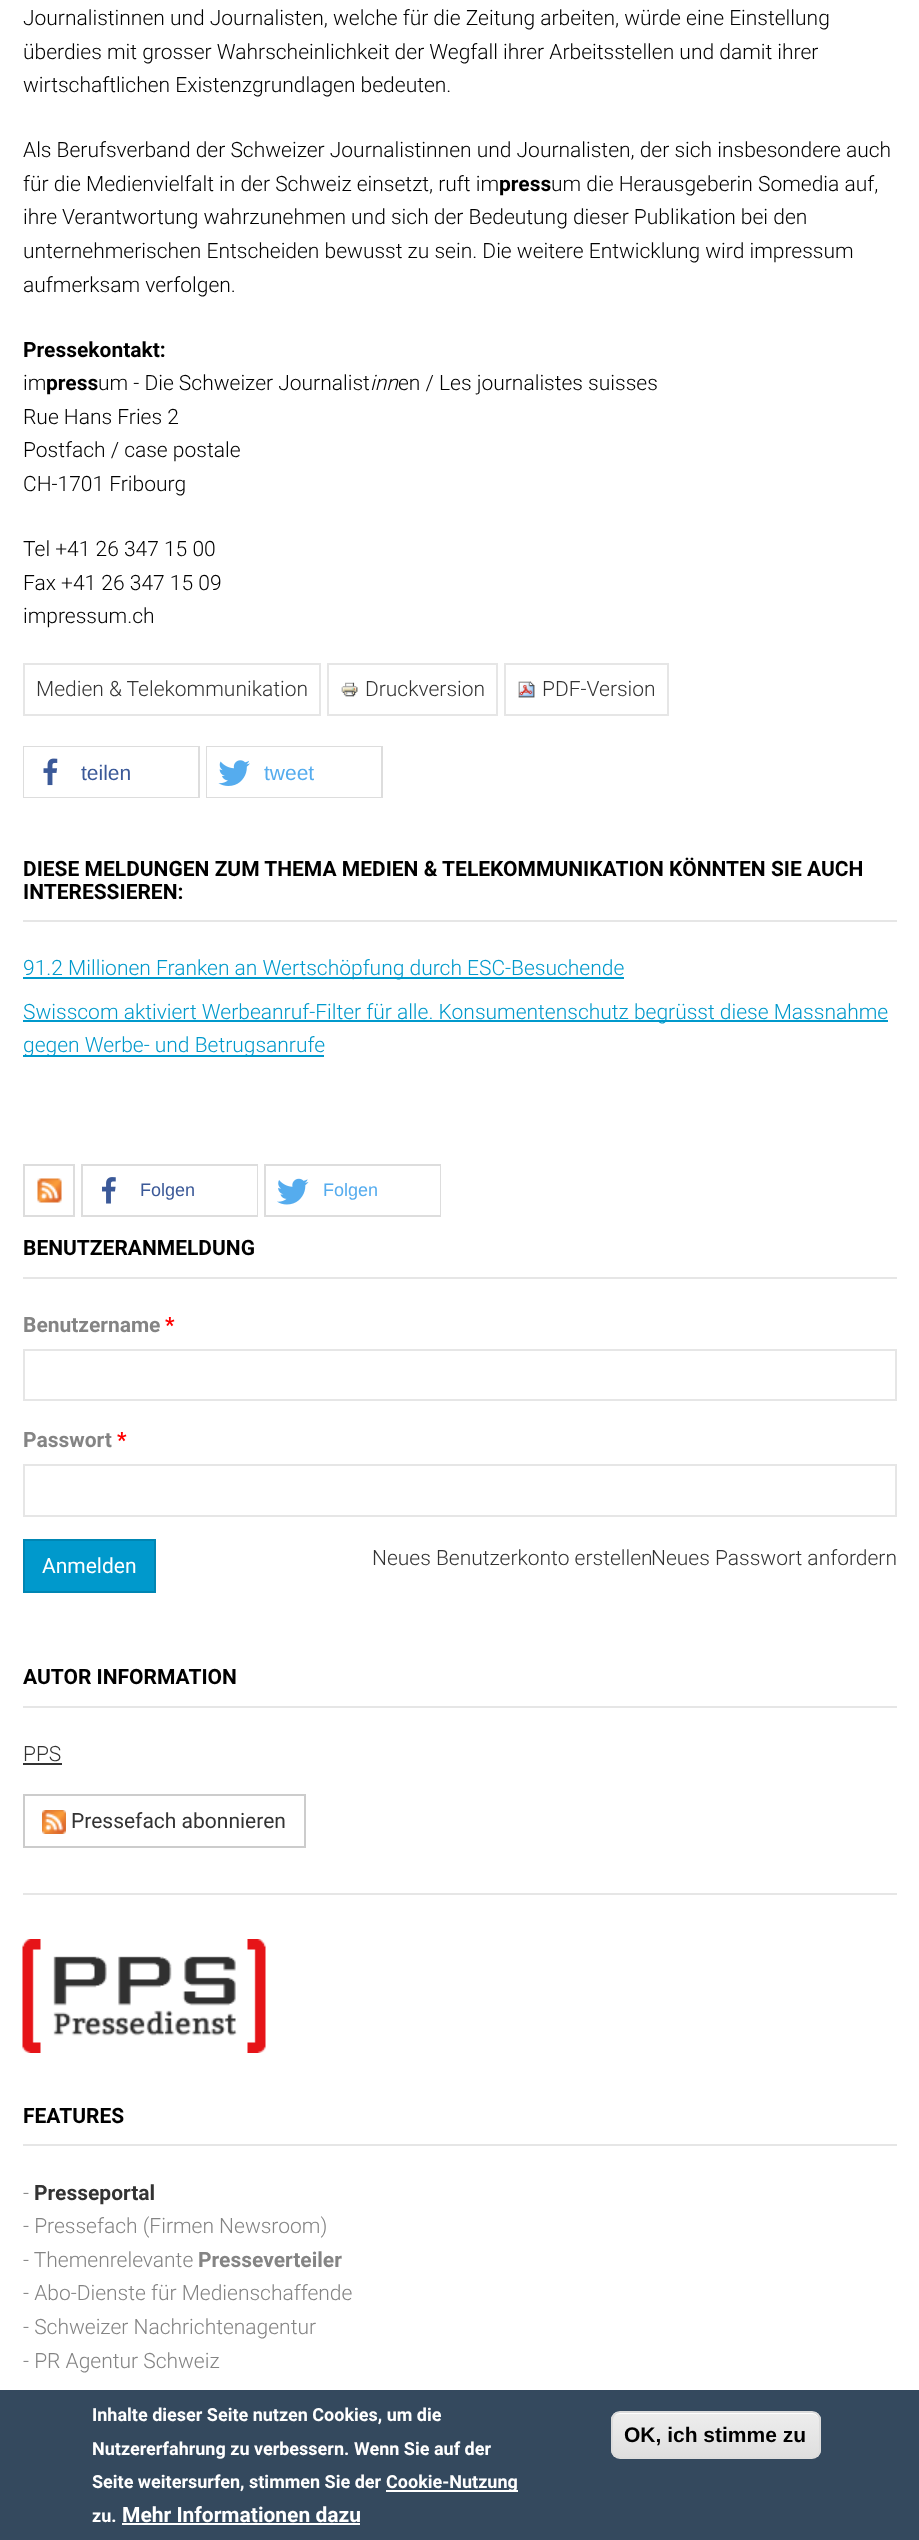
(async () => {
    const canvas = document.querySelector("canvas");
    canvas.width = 919;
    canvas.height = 2540;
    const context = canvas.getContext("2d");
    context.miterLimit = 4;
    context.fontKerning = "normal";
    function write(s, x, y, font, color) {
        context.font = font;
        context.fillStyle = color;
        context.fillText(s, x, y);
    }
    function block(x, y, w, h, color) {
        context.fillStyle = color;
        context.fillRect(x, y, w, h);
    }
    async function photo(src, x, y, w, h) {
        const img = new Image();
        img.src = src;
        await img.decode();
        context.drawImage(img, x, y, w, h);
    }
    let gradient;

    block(0, 0, 919, 2540, "rgb(255, 255, 255)");
    block(23, 1893, 874, 2, "rgb(230, 230, 230)");
    write("Journalistinnen und Journalisten, welche für die Zeitung arbeiten, würde eine Einstellung", 23, 25, "300 21px Roboto", "rgb(0, 0, 0)");
    write("überdies mit grosser Wahrscheinlichkeit der Wegfall ihrer Arbeitsstellen und damit ihrer", 23, 59, "300 21px Roboto", "rgb(0, 0, 0)");
    write("wirtschaftlichen Existenzgrundlagen bedeuten.", 23, 92, "300 21px Roboto", "rgb(0, 0, 0)");
    write("Als Berufsverband der Schweizer Journalistinnen und Journalisten, der sich insbesondere auch", 23, 157, "300 21px Roboto", "rgb(0, 0, 0)");
    write("für die Medienvielfalt in der Schweiz einsetzt, ruft im", 23, 191, "300 21px Roboto", "rgb(0, 0, 0)");
    write("press", 499, 191, "bold 21px Roboto", "rgb(0, 0, 0)");
    write("um die Herausgeberin Somedia auf,", 551, 191, "300 21px Roboto", "rgb(0, 0, 0)");
    write("ihre Verantwortung wahrzunehmen und sich der Bedeutung dieser Publikation bei den", 23, 224, "300 21px Roboto", "rgb(0, 0, 0)");
    write("unternehmerischen Entscheiden bewusst zu sein. Die weitere Entwicklung wird impressum", 23, 258, "300 21px Roboto", "rgb(0, 0, 0)");
    write("aufmerksam verfolgen.", 23, 292, "300 21px Roboto", "rgb(0, 0, 0)");
    write("Pressekontakt:", 23, 357, "bold 21px Roboto", "rgb(0, 0, 0)");
    write("im", 23, 390, "300 21px Roboto", "rgb(0, 0, 0)");
    write("press", 46, 390, "bold 21px Roboto", "rgb(0, 0, 0)");
    write("um - Die Schweizer Journalist", 98, 390, "300 21px Roboto", "rgb(0, 0, 0)");
    write("inn", 370, 390, "italic 300 21px Roboto", "rgb(0, 0, 0)");
    write("en / Les journalistes suisses", 398, 390, "300 21px Roboto", "rgb(0, 0, 0)");
    write("Rue Hans Fries 2", 23, 424, "300 21px Roboto", "rgb(0, 0, 0)");
    write("Postfach / case postale", 23, 457, "300 21px Roboto", "rgb(0, 0, 0)");
    write("CH-1701 Fribourg", 23, 491, "300 21px Roboto", "rgb(0, 0, 0)");
    write("Tel +41 26 347 15 00", 23, 556, "300 21px Roboto", "rgb(0, 0, 0)");
    write("Fax +41 26 347 15 09", 23, 590, "300 21px Roboto", "rgb(0, 0, 0)");
    write("impressum.ch", 23, 623, "300 21px Roboto", "rgb(0, 0, 0)");
    context.strokeStyle = "rgb(230, 230, 230)";
    context.lineWidth = 2;
    context.strokeRect(24, 664, 296, 51);
    write("Medien & Telekommunikation", 36, 696, "300 21px Roboto", "rgb(51, 51, 51)");
    context.strokeRect(328, 664, 169, 51);
    await photo("media/1.png", 341, 682, 17, 15);
    write("Druckversion", 365, 696, "300 21px Roboto", "rgb(51, 51, 51)");
    context.strokeRect(505, 664, 163, 51);
    await photo("media/2.png", 518, 681, 17, 17);
    write("PDF-Version", 542, 696, "300 21px Roboto", "rgb(51, 51, 51)");
    context.strokeStyle = "rgb(221, 221, 221)";
    context.strokeRect(24, 747, 175, 50);
    block(24, 747, 174, 50, "rgb(255, 255, 255)");
    await photo("media/3.png", 43, 758, 15, 28);
    write("teilen", 81, 780, "21px Liberation Sans", "rgb(59, 89, 152)");
    context.strokeRect(207, 747, 175, 50);
    block(207, 747, 174, 50, "rgb(255, 255, 255)");
    await photo("media/4.png", 218, 760, 32, 26);
    write("tweet", 264, 780, "21px Liberation Sans", "rgb(85, 172, 238)");
    block(23, 920, 874, 2, "rgb(230, 230, 230)");
    write("DIESE MELDUNGEN ZUM THEMA MEDIEN & TELEKOMMUNIKATION KÖNNTEN SIE AUCH", 23, 876, "bold 21px Roboto", "rgb(0, 0, 0)");
    write("INTERESSIEREN:", 23, 899, "bold 21px Roboto", "rgb(0, 0, 0)");
    block(23, 977, 601, 2, "rgb(0, 153, 204)");
    write("91.2 Millionen Franken an Wertschöpfung durch ESC-Besuchende", 23, 975, "300 21px Roboto", "rgb(0, 153, 204)");
    block(23, 1020, 865, 2, "rgb(0, 153, 204)");
    write("Swisscom aktiviert Werbeanruf-Filter für alle. Konsumentenschutz begrüsst diese Massnahme", 23, 1019, "300 21px Roboto", "rgb(0, 153, 204)");
    block(23, 1055, 301, 2, "rgb(0, 153, 204)");
    write("gegen Werbe- und Betrugsanrufe", 23, 1052, "300 21px Roboto", "rgb(0, 153, 204)");
    context.strokeRect(24, 1165, 50, 51);
    await photo("media/5.png", 37, 1178, 25, 25);
    context.strokeRect(82, 1165, 175, 51);
    block(256, 1166, 1, 49, "rgb(255, 255, 255)");
    await photo("media/6.png", 102, 1177, 14, 27);
    write("Folgen", 140, 1196, "18px Liberation Sans", "rgb(59, 89, 152)");
    context.strokeRect(265, 1165, 175, 51);
    block(439, 1166, 1, 49, "rgb(255, 255, 255)");
    await photo("media/7.png", 277, 1178, 32, 27);
    write("Folgen", 323, 1196, "18px Liberation Sans", "rgb(85, 172, 238)");
    block(23, 1277, 874, 2, "rgb(230, 230, 230)");
    write("BENUTZERANMELDUNG", 23, 1255, "bold 21px Roboto", "rgb(0, 0, 0)");
    write("Benutzername", 23, 1332, "bold 21px Roboto", "rgb(132, 132, 132)");
    write("*", 165, 1332, "bold 21px Roboto", "rgb(255, 0, 0)");
    context.strokeStyle = "rgb(230, 230, 230)";
    context.strokeRect(24, 1350, 872, 50);
    write("Passwort", 23, 1447, "bold 21px Roboto", "rgb(132, 132, 132)");
    write("*", 117, 1447, "bold 21px Roboto", "rgb(255, 0, 0)");
    context.strokeRect(24, 1465, 872, 51);
    context.fillStyle = "rgb(0, 153, 204)";
    context.beginPath();
    context.rect(24, 1540, 131, 52);
    context.fill();
    context.strokeStyle = "rgb(0, 134, 179)";
    context.stroke();
    write("Anmelden", 42, 1573, "21px Roboto", "rgb(255, 255, 255)");
    write("Neues Benutzerkonto erstellen", 372, 1565, "300 21px Roboto", "rgb(51, 51, 51)");
    write("Neues Passwort anfordern", 651, 1565, "300 21px Roboto", "rgb(51, 51, 51)");
    block(23, 1706, 874, 2, "rgb(230, 230, 230)");
    write("AUTOR INFORMATION", 23, 1684, "bold 21px Roboto", "rgb(0, 0, 0)");
    write("PPS", 23, 1761, "300 21px Roboto", "rgb(51, 51, 51)");
    block(23, 1763, 39, 2, "rgb(51, 51, 51)");
    context.strokeStyle = "rgb(204, 204, 204)";
    context.strokeRect(24, 1795, 281, 52);
    await photo("media/8.png", 42, 1810, 24, 24);
    write("Pressefach abonnieren", 71, 1828, "21px Roboto", "rgb(51, 51, 51)");
    await photo("media/9.png", 22, 1939, 244, 114);
    block(23, 2144, 874, 2, "rgb(230, 230, 230)");
    write("FEATURES", 23, 2123, "bold 21px Roboto", "rgb(0, 0, 0)");
    write("-", 23, 2200, "300 21px Roboto", "rgb(132, 132, 132)");
    write("Presseportal", 34, 2200, "bold 21px Roboto", "rgb(51, 51, 51)");
    write("- Pressefach (Firmen Newsroom)", 23, 2233, "300 21px Roboto", "rgb(132, 132, 132)");
    write("- Themenrelevante", 23, 2267, "300 21px Roboto", "rgb(132, 132, 132)");
    write("Presseverteiler", 198, 2267, "bold 21px Roboto", "rgb(132, 132, 132)");
    write("- Abo-Dienste für Medienschaffende", 23, 2300, "300 21px Roboto", "rgb(132, 132, 132)");
    write("- Schweizer Nachrichtenagentur", 23, 2334, "300 21px Roboto", "rgb(132, 132, 132)");
    write("- PR Agentur Schweiz", 23, 2368, "300 21px Roboto", "rgb(132, 132, 132)");
    block(0, 2390, 919, 150, "rgb(52, 73, 94)");
    write("Inhalte dieser Seite nutzen Cookies, um die", 92, 2421, "bold 18px Roboto", "rgb(255, 255, 255)");
    write("Nutzererfahrung zu verbessern.", 92, 2455, "bold 18px Roboto", "rgb(255, 255, 255)");
    write("Wenn Sie auf der", 354, 2455, "bold 18px Roboto", "rgb(255, 255, 255)");
    write("Seite weitersurfen, stimmen Sie der", 92, 2488, "bold 18px Roboto", "rgb(255, 255, 255)");
    block(386, 2490, 132, 2, "rgb(255, 255, 255)");
    write("Cookie-Nutzung", 386, 2488, "bold 18px Roboto", "rgb(255, 255, 255)");
    write("zu.", 92, 2522, "bold 18px Roboto", "rgb(255, 255, 255)");
    write("Mehr Informationen dazu", 122, 2522, "bold 21px Roboto", "rgb(255, 255, 255)");
    block(122, 2523, 238, 2, "rgb(255, 255, 255)");
    context.save();
    context.beginPath();
    context.roundRect(611, 2411, 210, 48, 9);
    context.clip();
    gradient = context.createLinearGradient(716, 2412, 716, 2457);
    gradient.addColorStop(0.05, "rgb(237, 237, 237)");
    gradient.addColorStop(1, "rgb(223, 223, 223)");
    context.fillStyle = gradient;
    context.fillRect(611, 2412, 210, 45);
    context.restore();
    context.beginPath();
    context.moveTo(620, 2414);
    context.lineTo(812, 2414);
    context.bezierCurveTo(816, 2414, 819, 2417, 819, 2421);
    context.lineTo(819, 2420);
    context.bezierCurveTo(819, 2416, 815, 2412, 811, 2412);
    context.lineTo(620, 2412);
    context.bezierCurveTo(616, 2412, 612, 2416, 612, 2420);
    context.lineTo(612, 2421);
    context.bezierCurveTo(612, 2417, 615, 2414, 620, 2414);
    context.closePath();
    context.fill();
    context.beginPath();
    context.roundRect(612, 2412, 208, 46, 8);
    context.strokeStyle = "rgb(220, 220, 220)";
    context.stroke();
    write("OK, ich stimme zu", 624, 2442, "bold 21px Liberation Sans", "rgb(0, 0, 0)");
})();
